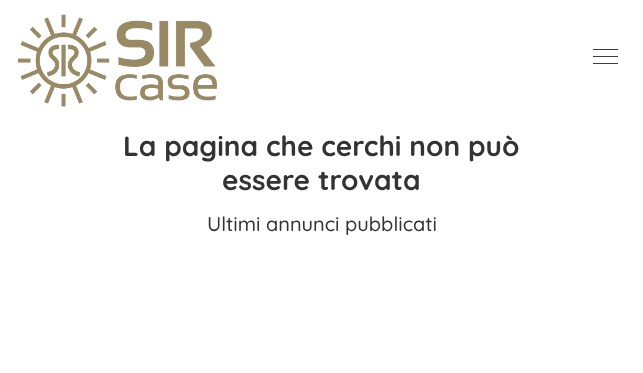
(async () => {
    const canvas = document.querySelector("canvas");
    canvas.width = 643;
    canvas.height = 373;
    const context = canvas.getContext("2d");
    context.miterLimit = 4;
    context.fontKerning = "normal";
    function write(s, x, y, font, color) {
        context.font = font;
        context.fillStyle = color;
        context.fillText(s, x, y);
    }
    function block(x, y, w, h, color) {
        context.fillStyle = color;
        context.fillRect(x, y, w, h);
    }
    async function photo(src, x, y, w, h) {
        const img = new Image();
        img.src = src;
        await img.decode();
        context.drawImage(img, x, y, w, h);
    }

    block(0, 0, 643, 373, "rgb(255, 255, 255)");
    await photo("media/1.png", 18, 14, 199, 93);
    await photo("media/2.png", 593, 49, 25, 15);
    write("La pagina che cerchi non può", 123, 156, "bold 28px Quicksand", "rgb(51, 51, 51)");
    write("essere trovata", 222, 190, "bold 28px Quicksand", "rgb(51, 51, 51)");
    write("Ultimi annunci pubblicati", 207, 231, "500 20px Quicksand", "rgb(51, 51, 51)");
})();
